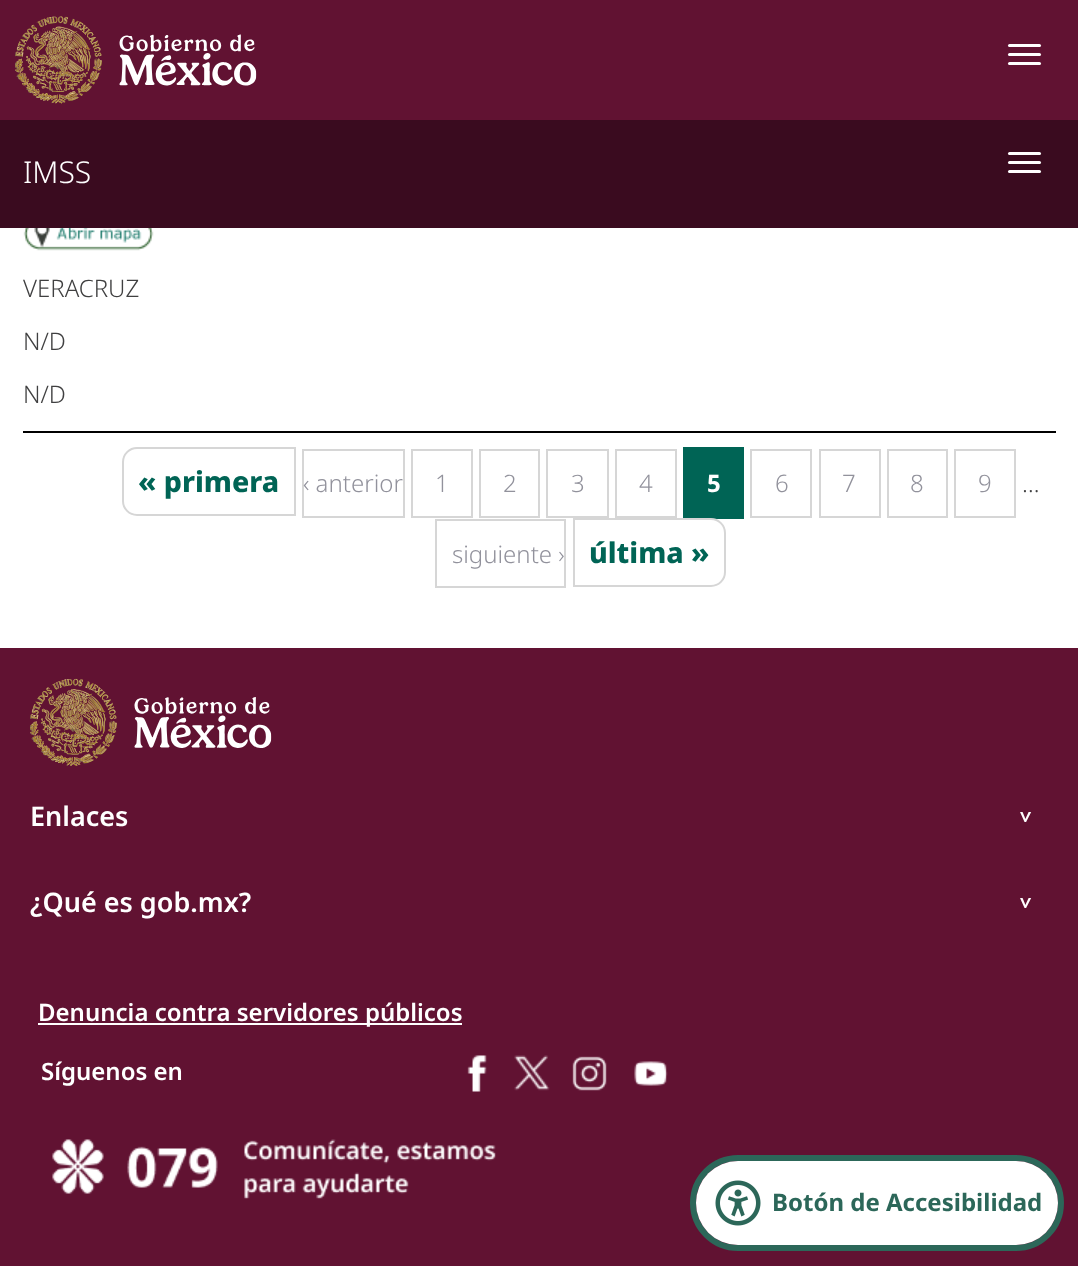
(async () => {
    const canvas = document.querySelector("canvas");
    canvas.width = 1078;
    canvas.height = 1266;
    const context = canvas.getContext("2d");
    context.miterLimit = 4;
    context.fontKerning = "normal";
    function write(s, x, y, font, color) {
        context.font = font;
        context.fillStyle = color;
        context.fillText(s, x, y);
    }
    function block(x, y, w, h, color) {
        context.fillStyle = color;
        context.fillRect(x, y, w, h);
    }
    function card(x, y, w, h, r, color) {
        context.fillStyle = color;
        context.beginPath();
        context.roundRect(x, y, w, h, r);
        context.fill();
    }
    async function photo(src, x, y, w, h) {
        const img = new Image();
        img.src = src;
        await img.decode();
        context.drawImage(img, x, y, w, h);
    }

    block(0, 0, 1078, 1266, "rgb(255, 255, 255)");
    block(0, 0, 1078, 120, "rgb(97, 18, 50)");
    await photo("media/1.png", 15, 16, 242, 88);
    card(1008, 44, 33, 3, 1.5, "rgb(255, 255, 255)");
    card(1008, 53, 33, 3, 1.5, "rgb(255, 255, 255)");
    card(1008, 62, 33, 3, 1.5, "rgb(255, 255, 255)");
    block(0, 120, 1078, 108, "rgb(58, 11, 31)");
    write("IMSS", 23, 183, "300 30px Noto Sans", "rgb(255, 255, 255)");
    card(1008, 152, 33, 3, 1.5, "rgb(255, 255, 255)");
    card(1008, 161, 33, 3, 1.5, "rgb(255, 255, 255)");
    card(1008, 170, 33, 3, 1.5, "rgb(255, 255, 255)");
    await photo("media/2.png", 23, 228, 131, 23);
    write("VERACRUZ", 23, 297, "300 24px Noto Sans", "rgb(64, 64, 65)");
    write("N/D", 23, 350, "300 24px Noto Sans", "rgb(64, 64, 65)");
    write("N/D", 23, 403, "300 24px Noto Sans", "rgb(64, 64, 65)");
    block(23, 431, 1033, 2, "rgb(0, 0, 0)");
    context.beginPath();
    context.roundRect(123, 448, 172, 67, [14, 0, 0, 14]);
    context.strokeStyle = "rgb(214, 214, 214)";
    context.lineWidth = 2;
    context.stroke();
    write("« primera", 138, 492, "800 28.5px Noto Sans", "rgb(0, 100, 85)");
    context.strokeRect(303, 450, 101, 67);
    write("‹ anterior", 303, 492, "300 24px Noto Sans", "rgb(146, 146, 156)");
    context.strokeRect(412, 450, 60, 67);
    write("1", 435, 492, "300 24px Noto Sans", "rgb(146, 146, 156)");
    context.strokeRect(480, 450, 59, 67);
    write("2", 503, 492, "300 24px Noto Sans", "rgb(146, 146, 156)");
    context.strokeRect(547, 450, 61, 67);
    write("3", 571, 492, "300 24px Noto Sans", "rgb(146, 146, 156)");
    context.strokeRect(616, 450, 60, 67);
    write("4", 639, 492, "300 24px Noto Sans", "rgb(146, 146, 156)");
    block(683, 447, 61, 72, "rgb(0, 100, 85)");
    write("5", 707, 492, "bold 24px Noto Sans", "rgb(255, 255, 255)");
    context.strokeRect(751, 450, 60, 67);
    write("6", 775, 492, "300 24px Noto Sans", "rgb(146, 146, 156)");
    context.strokeRect(820, 450, 60, 67);
    write("7", 842, 492, "300 24px Noto Sans", "rgb(146, 146, 156)");
    context.strokeRect(888, 450, 59, 67);
    write("8", 910, 492, "300 24px Noto Sans", "rgb(146, 146, 156)");
    context.strokeRect(955, 450, 60, 67);
    write("9", 978, 492, "300 24px Noto Sans", "rgb(146, 146, 156)");
    write("…", 1022, 492, "300 24px Noto Sans", "rgb(64, 64, 65)");
    context.strokeRect(436, 520, 129, 67);
    write("siguiente ›", 452, 563, "300 24px Noto Sans", "rgb(146, 146, 156)");
    context.fillStyle = "rgb(255, 255, 255)";
    context.beginPath();
    context.roundRect(574, 519, 151, 67, [0, 14, 14, 0]);
    context.fill();
    context.stroke();
    write("última »", 589, 563, "800 28.5px Noto Sans", "rgb(0, 100, 85)");
    block(0, 648, 1078, 618, "rgb(97, 18, 50)");
    await photo("media/3.png", 30, 678, 242, 88);
    write("Enlaces", 30, 826, "600 27px Noto Sans", "rgb(255, 255, 255)");
    context.font = "bold 21px Noto Sans";
    context.save();
    context.translate(1018, 811);
    context.rotate(90 * Math.PI / 180);
    context.fillText(">", 0, 0);
    context.restore();
    write("¿Qué es gob.mx?", 30, 912, "600 27px Noto Sans", "rgb(255, 255, 255)");
    context.font = "bold 21px Noto Sans";
    context.save();
    context.translate(1018, 897);
    context.rotate(90 * Math.PI / 180);
    context.fillText(">", 0, 0);
    context.restore();
    block(38, 1023, 424, 2, "rgb(255, 255, 255)");
    write("Denuncia contra servidores públicos", 38, 1021, "600 24px Noto Sans", "rgb(255, 255, 255)");
    write("Síguenos en", 41, 1080, "600 24px Noto Sans", "rgb(255, 255, 255)");
    await photo("media/4.png", 467, 1055, 20, 37);
    await photo("media/5.png", 514, 1055, 36, 36);
    await photo("media/6.png", 572, 1056, 35, 35);
    await photo("media/7.png", 634, 1061, 34, 25);
    await photo("media/8.png", 52, 1139, 444, 60);
    context.beginPath();
    context.roundRect(693, 1158, 368, 90, 45);
    context.strokeStyle = "rgb(44, 103, 89)";
    context.lineWidth = 6;
    context.stroke();
    card(696, 1161, 362, 84, 42, "rgb(255, 255, 255)");
    await photo("media/9.png", 715, 1180, 46, 46);
    write("Botón de Accesibilidad", 772, 1211, "bold 24px Noto Sans", "rgb(44, 103, 89)");
})();
